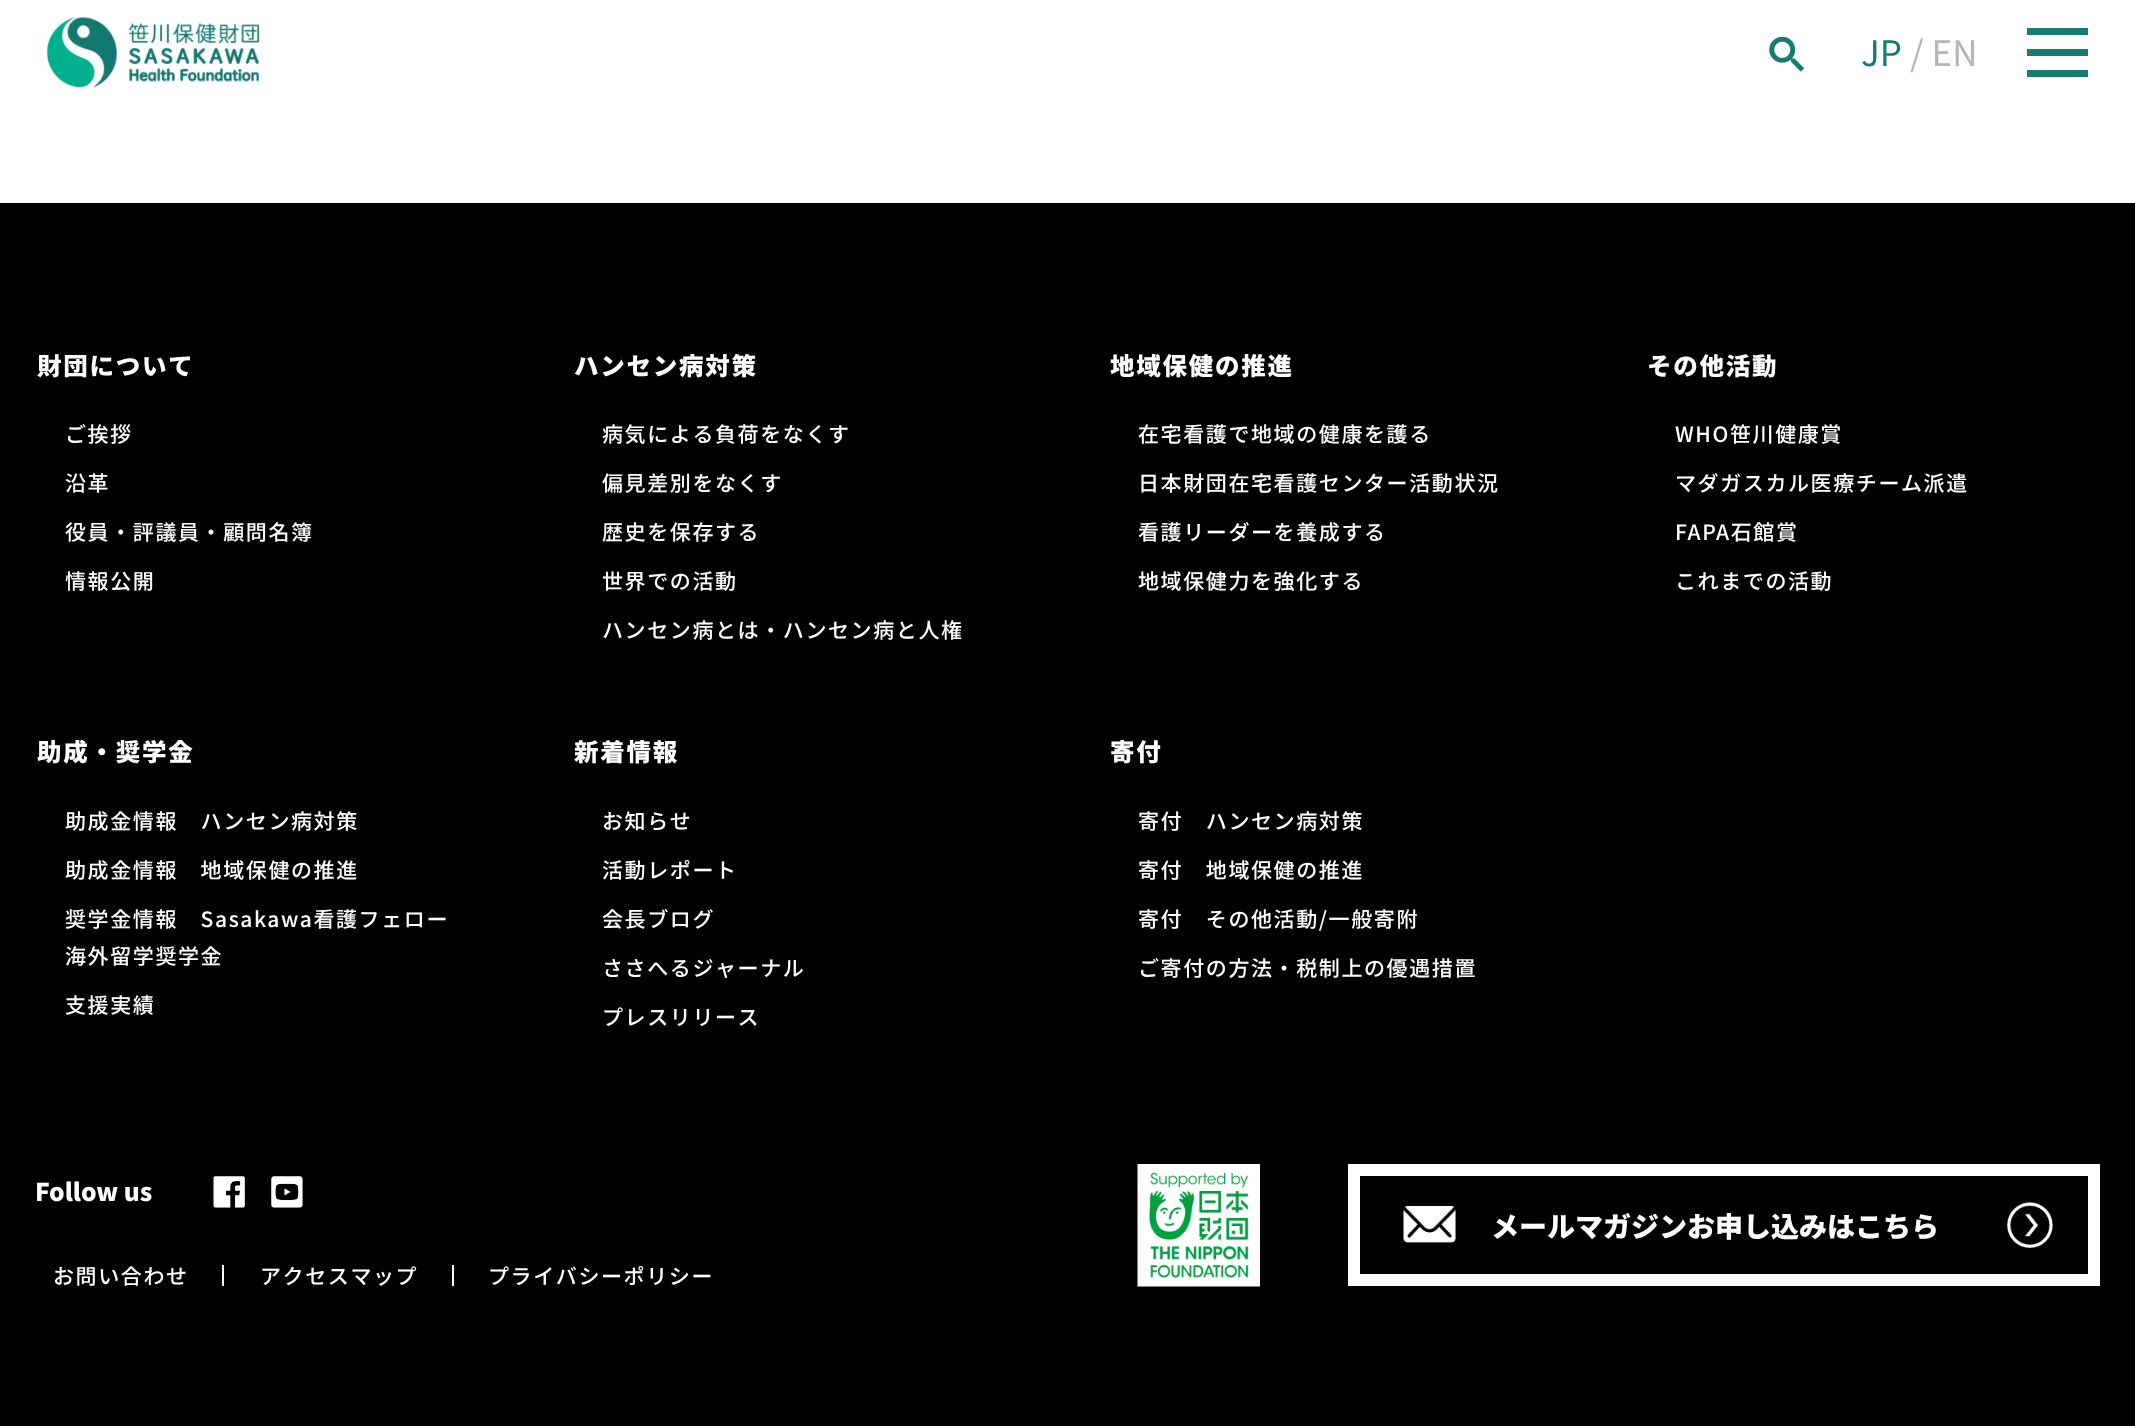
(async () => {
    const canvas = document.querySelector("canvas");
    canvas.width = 2135;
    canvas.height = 1426;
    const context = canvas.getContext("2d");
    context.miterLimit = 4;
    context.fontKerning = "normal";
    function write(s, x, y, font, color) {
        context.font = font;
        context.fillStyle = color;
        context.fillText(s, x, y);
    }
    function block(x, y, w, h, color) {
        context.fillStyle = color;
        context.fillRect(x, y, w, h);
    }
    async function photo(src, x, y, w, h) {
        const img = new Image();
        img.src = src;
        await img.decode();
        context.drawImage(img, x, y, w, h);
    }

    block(0, 0, 2135, 1426, "rgb(255, 255, 255)");
    await photo("media/1.png", 46, 16, 214, 72);
    await photo("media/2.png", 1769, 37, 35, 35);
    write("JP", 1861, 66, "35px Noto Sans JP", "rgb(20, 125, 112)");
    write("/ EN", 1910, 66, "35px Noto Sans JP", "rgb(181, 181, 181)");
    block(2027, 49, 61, 7, "rgb(20, 125, 112)");
    block(2027, 28, 61, 7, "rgb(20, 125, 112)");
    block(2027, 70, 61, 7, "rgb(20, 125, 112)");
    block(0, 203, 2135, 1223, "rgb(0, 0, 0)");
    context.letterSpacing = "1.75px";
    write("財団について", 37, 375, "900 24.5px Noto Sans JP", "rgb(255, 255, 255)");
    context.letterSpacing = "1.6px";
    write("ご挨拶", 65, 442, "500 21px Noto Sans JP", "rgb(255, 255, 255)");
    write("沿革", 65, 491, "500 21px Noto Sans JP", "rgb(255, 255, 255)");
    write("役員・評議員・顧問名簿", 65, 540, "500 21px Noto Sans JP", "rgb(255, 255, 255)");
    write("情報公開", 65, 589, "500 21px Noto Sans JP", "rgb(255, 255, 255)");
    context.letterSpacing = "1.75px";
    write("ハンセン病対策", 574, 375, "900 24.5px Noto Sans JP", "rgb(255, 255, 255)");
    context.letterSpacing = "1.6px";
    write("病気による負荷をなくす", 602, 442, "500 21px Noto Sans JP", "rgb(255, 255, 255)");
    write("偏見差別をなくす", 602, 491, "500 21px Noto Sans JP", "rgb(255, 255, 255)");
    write("歴史を保存する", 602, 540, "500 21px Noto Sans JP", "rgb(255, 255, 255)");
    write("世界での活動", 602, 589, "500 21px Noto Sans JP", "rgb(255, 255, 255)");
    write("ハンセン病とは・ハンセン病と人権", 602, 638, "500 21px Noto Sans JP", "rgb(255, 255, 255)");
    context.letterSpacing = "1.75px";
    write("地域保健の推進", 1110, 375, "900 24.5px Noto Sans JP", "rgb(255, 255, 255)");
    context.letterSpacing = "1.6px";
    write("在宅看護で地域の健康を護る", 1138, 442, "500 21px Noto Sans JP", "rgb(255, 255, 255)");
    write("日本財団在宅看護センター活動状況", 1138, 491, "500 21px Noto Sans JP", "rgb(255, 255, 255)");
    write("看護リーダーを養成する", 1138, 540, "500 21px Noto Sans JP", "rgb(255, 255, 255)");
    write("地域保健力を強化する", 1138, 589, "500 21px Noto Sans JP", "rgb(255, 255, 255)");
    context.letterSpacing = "1.75px";
    write("その他活動", 1647, 375, "900 24.5px Noto Sans JP", "rgb(255, 255, 255)");
    context.letterSpacing = "1.6px";
    write("WHO笹川健康賞", 1675, 442, "500 21px Noto Sans JP", "rgb(255, 255, 255)");
    write("マダガスカル医療チーム派遣", 1675, 491, "500 21px Noto Sans JP", "rgb(255, 255, 255)");
    write("FAPA石館賞", 1675, 540, "500 21px Noto Sans JP", "rgb(255, 255, 255)");
    write("これまでの活動", 1675, 589, "500 21px Noto Sans JP", "rgb(255, 255, 255)");
    context.letterSpacing = "1.75px";
    write("助成・奨学金", 37, 761, "900 24.5px Noto Sans JP", "rgb(255, 255, 255)");
    context.letterSpacing = "1.6px";
    write("助成金情報　ハンセン病対策", 65, 829, "500 21px Noto Sans JP", "rgb(255, 255, 255)");
    write("助成金情報　地域保健の推進", 65, 878, "500 21px Noto Sans JP", "rgb(255, 255, 255)");
    write("奨学金情報　Sasakawa看護フェロー", 65, 927, "500 21px Noto Sans JP", "rgb(255, 255, 255)");
    write("海外留学奨学金", 65, 964, "500 21px Noto Sans JP", "rgb(255, 255, 255)");
    write("支援実績", 65, 1013, "500 21px Noto Sans JP", "rgb(255, 255, 255)");
    context.letterSpacing = "1.75px";
    write("新着情報", 574, 761, "900 24.5px Noto Sans JP", "rgb(255, 255, 255)");
    context.letterSpacing = "1.6px";
    write("お知らせ", 602, 829, "500 21px Noto Sans JP", "rgb(255, 255, 255)");
    write("活動レポート", 602, 878, "500 21px Noto Sans JP", "rgb(255, 255, 255)");
    write("会長ブログ", 602, 927, "500 21px Noto Sans JP", "rgb(255, 255, 255)");
    write("ささへるジャーナル", 602, 976, "500 21px Noto Sans JP", "rgb(255, 255, 255)");
    write("プレスリリース", 602, 1025, "500 21px Noto Sans JP", "rgb(255, 255, 255)");
    context.letterSpacing = "1.75px";
    write("寄付", 1110, 761, "900 24.5px Noto Sans JP", "rgb(255, 255, 255)");
    context.letterSpacing = "1.6px";
    write("寄付　ハンセン病対策", 1138, 829, "500 21px Noto Sans JP", "rgb(255, 255, 255)");
    write("寄付　地域保健の推進", 1138, 878, "500 21px Noto Sans JP", "rgb(255, 255, 255)");
    write("寄付　その他活動/一般寄附", 1138, 927, "500 21px Noto Sans JP", "rgb(255, 255, 255)");
    write("ご寄付の方法・税制上の優遇措置", 1138, 976, "500 21px Noto Sans JP", "rgb(255, 255, 255)");
    context.letterSpacing = "0px";
    write("Follow us", 35, 1201, "900 24.5px Noto Sans JP", "rgb(255, 255, 255)");
    await photo("media/3.png", 213, 1176, 32, 32);
    await photo("media/4.png", 271, 1176, 32, 32);
    block(222, 1265, 2, 21, "rgb(255, 255, 255)");
    context.letterSpacing = "1.6px";
    write("お問い合わせ", 53, 1284, "500 21px Noto Sans JP", "rgb(255, 255, 255)");
    block(452, 1265, 2, 21, "rgb(255, 255, 255)");
    write("アクセスマップ", 260, 1284, "500 21px Noto Sans JP", "rgb(255, 255, 255)");
    write("プライバシーポリシー", 488, 1284, "500 21px Noto Sans JP", "rgb(255, 255, 255)");
    await photo("media/5.png", 1137, 1164, 123, 123);
    context.strokeStyle = "rgb(255, 255, 255)";
    context.lineWidth = 12;
    context.strokeRect(1354, 1170, 740, 110);
    await photo("media/6.png", 1403, 1206, 53, 37);
    context.letterSpacing = "0px";
    write("メールマガジンお申し込みはこちら", 1491, 1237, "900 28px Noto Sans JP", "rgb(255, 255, 255)");
    await photo("media/7.png", 2007, 1202, 46, 46);
})();
